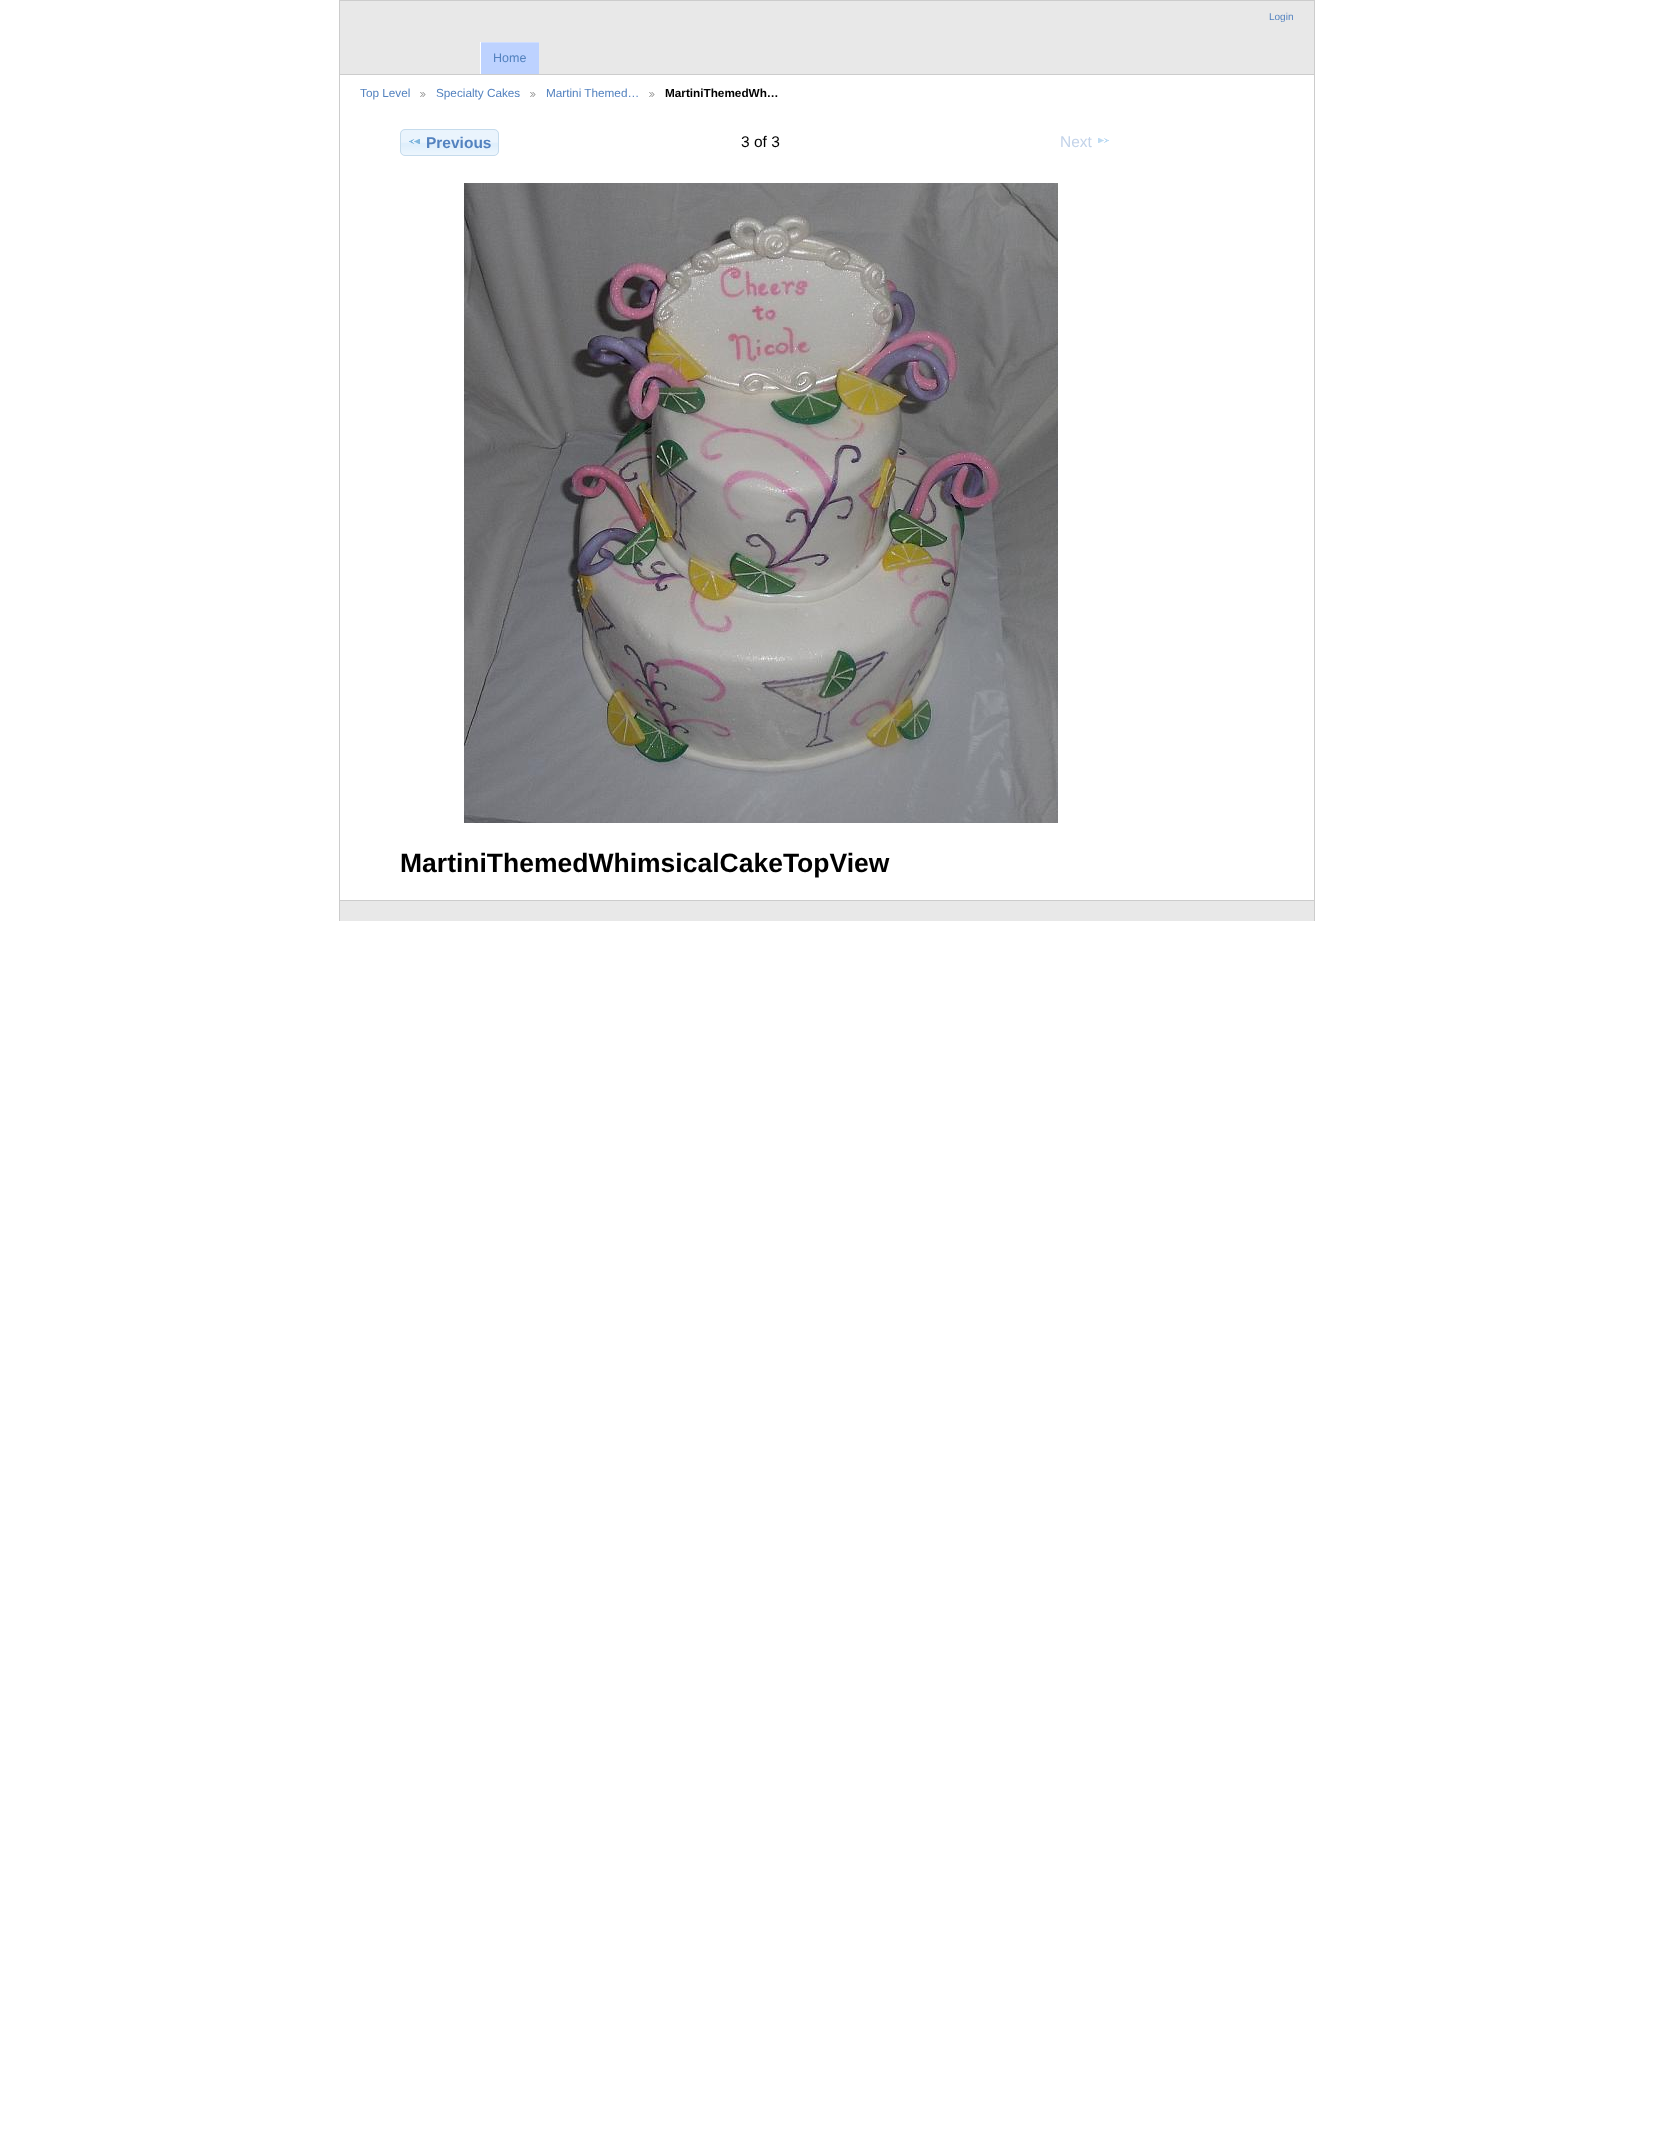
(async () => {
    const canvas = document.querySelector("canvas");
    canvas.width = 1654;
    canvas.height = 2135;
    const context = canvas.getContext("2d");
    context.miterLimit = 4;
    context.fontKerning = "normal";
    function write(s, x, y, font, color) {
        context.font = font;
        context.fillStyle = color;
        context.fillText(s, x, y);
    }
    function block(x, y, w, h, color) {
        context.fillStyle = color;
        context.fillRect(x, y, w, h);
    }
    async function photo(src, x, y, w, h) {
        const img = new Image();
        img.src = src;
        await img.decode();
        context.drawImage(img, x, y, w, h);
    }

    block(0, 0, 1654, 2135, "rgb(255, 255, 255)");
    block(339, 0, 976, 1, "rgb(204, 204, 204)");
    block(1314, 0, 1, 921, "rgb(204, 204, 204)");
    block(339, 0, 1, 921, "rgb(204, 204, 204)");
    block(340, 1, 974, 73, "rgb(232, 232, 232)");
    block(340, 74, 974, 1, "rgb(204, 204, 204)");
    write("Login", 1269, 20, "10px Liberation Sans", "rgb(83, 130, 191)");
    block(481, 43, 58, 31, "rgb(189, 210, 255)");
    block(480, 42, 59, 1, "rgb(207, 222, 255)");
    block(480, 42, 1, 32, "rgb(255, 255, 255)");
    write("Home", 493, 62, "12.5px Liberation Sans", "rgb(83, 130, 191)");
    write("Top Level", 360, 97, "11.75px Liberation Sans", "rgb(83, 130, 191)");
    await photo("media/1.png", 420, 92, 6, 5);
    write("Specialty Cakes", 436, 97, "11.75px Liberation Sans", "rgb(83, 130, 191)");
    await photo("media/1.png", 530, 92, 6, 5);
    write("Martini Themed…", 546, 97, "11.75px Liberation Sans", "rgb(83, 130, 191)");
    await photo("media/1.png", 649, 92, 6, 5);
    write("MartiniThemedWh…", 665, 97, "bold 11.75px Liberation Sans", "rgb(0, 0, 0)");
    await photo("media/2.png", 400, 129, 99, 27);
    context.beginPath();
    context.roundRect(400.5, 129.5, 98, 26, 4.5);
    context.strokeStyle = "rgb(197, 219, 236)";
    context.stroke();
    await photo("media/3.png", 409, 139, 11, 5);
    write("Previous", 426, 148, "bold 15.5px Liberation Sans", "rgb(83, 130, 191)");
    write("3 of 3", 741, 147, "15.5px Liberation Sans", "rgb(0, 0, 0)");
    write("Next", 1060, 147, "15.5px Liberation Sans", "rgb(195, 211, 233)");
    await photo("media/4.png", 1098, 138, 11, 5);
    await photo("media/5.png", 464, 183, 594, 640);
    write("MartiniThemedWhimsicalCakeTopView", 400, 872, "bold 26.5px Liberation Sans", "rgb(0, 0, 0)");
    block(340, 901, 974, 20, "rgb(232, 232, 232)");
    block(340, 900, 974, 1, "rgb(204, 204, 204)");
})();
